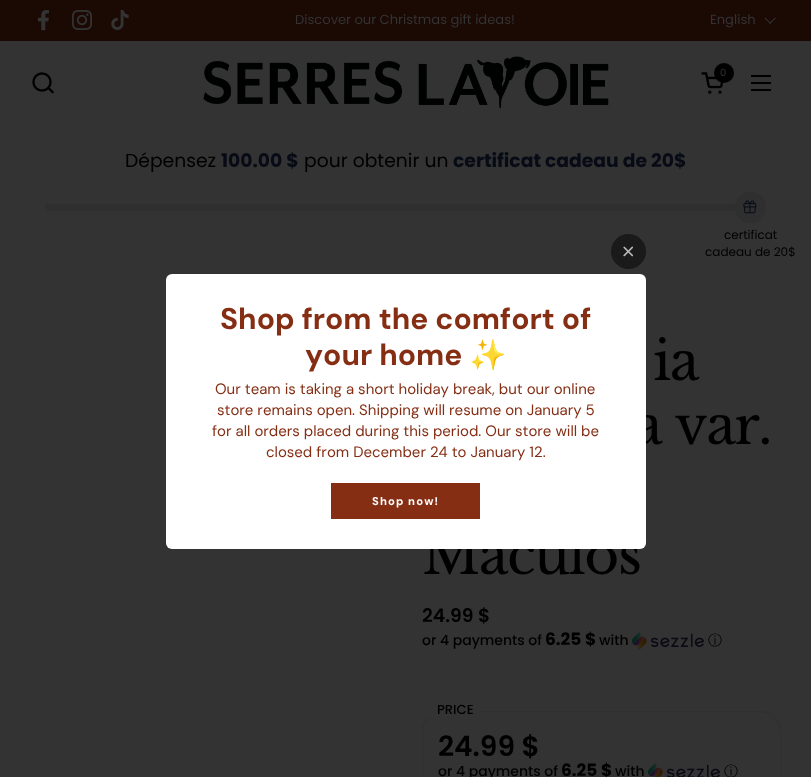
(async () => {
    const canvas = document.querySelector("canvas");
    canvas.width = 811;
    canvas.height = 777;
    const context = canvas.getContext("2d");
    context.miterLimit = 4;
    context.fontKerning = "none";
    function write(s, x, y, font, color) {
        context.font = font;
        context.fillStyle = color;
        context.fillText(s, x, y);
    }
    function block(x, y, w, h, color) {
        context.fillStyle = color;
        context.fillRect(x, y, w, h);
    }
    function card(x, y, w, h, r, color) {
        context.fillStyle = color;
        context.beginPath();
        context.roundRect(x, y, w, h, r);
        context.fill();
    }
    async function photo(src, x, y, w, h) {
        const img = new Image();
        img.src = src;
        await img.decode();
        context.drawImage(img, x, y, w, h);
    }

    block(0, 0, 811, 777, "rgb(51, 51, 51)");
    block(0, 0, 811, 41, "rgb(27, 9, 4)");
    await photo("media/1.png", 38, 10, 11, 21);
    await photo("media/2.png", 72, 10, 20, 20);
    await photo("media/3.png", 111, 10, 18, 20);
    write("Discover our Christmas gift ideas!", 295, 24, "13.1px Poppins", "rgb(51, 51, 51)");
    write("English", 710, 24, "13.1px Poppins", "rgb(51, 51, 51)");
    await photo("media/4.png", 764, 17, 12, 7);
    await photo("media/5.png", 32, 72, 22, 22);
    await photo("media/6.png", 203, 56, 406, 53);
    context.fillStyle = "rgb(0, 0, 0)";
    context.beginPath();
    context.arc(724, 73, 10, 0, Math.PI * 2);
    context.fill();
    write("0", 720, 76, "10px Poppins", "rgb(51, 51, 51)");
    await photo("media/7.png", 701, 72, 22, 22);
    block(751, 75, 20, 2, "rgb(0, 0, 0)");
    block(751, 82, 20, 2, "rgb(0, 0, 0)");
    block(751, 89, 20, 2, "rgb(0, 0, 0)");
    write("Dépensez", 125, 167, "18.75px Poppins", "rgb(0, 0, 0)");
    write("100.00 $", 221, 167, "bold 18.75px Poppins", "rgb(7, 11, 21)");
    write("pour obtenir un", 304, 167, "18.75px Poppins", "rgb(0, 0, 0)");
    write("certificat cadeau de 20$", 453, 167, "bold 18.75px Poppins", "rgb(7, 11, 21)");
    card(45, 204, 705, 7, 3.5, "rgb(47, 47, 48)");
    context.beginPath();
    context.arc(750.5, 207.5, 15.5, 0, Math.PI * 2);
    context.fill();
    await photo("media/8.png", 743, 200, 14, 14);
    write("certificat", 724, 239, "12px Poppins", "rgb(0, 0, 0)");
    write("cadeau de 20$", 705, 256, "12px Poppins", "rgb(0, 0, 0)");
    context.letterSpacing = "-1.5px";
    write("ia", 653, 380, "53.5px Libre Baskerville", "rgb(0, 0, 0)");
    write("a var.", 633, 444, "53.5px Libre Baskerville", "rgb(0, 0, 0)");
    write("Maculos", 422, 574, "53.5px Libre Baskerville", "rgb(0, 0, 0)");
    context.letterSpacing = "0px";
    write("24.99 $", 422, 622, "600 18.75px Poppins", "rgb(0, 0, 0)");
    write("or 4 payments of", 422, 645, "500 14px Poppins", "rgb(0, 0, 0)");
    write("6.25 $", 545, 645, "bold 17px Poppins", "rgb(0, 0, 0)");
    write("with", 599, 645, "500 14px Poppins", "rgb(0, 0, 0)");
    await photo("media/9.png", 632, 632, 72, 18);
    write("ⓘ", 708, 645, "500 14px WenQuanYi Zen Hei", "rgb(0, 0, 0)");
    context.beginPath();
    context.roundRect(422.5, 711.5, 358, 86, 19.5);
    context.strokeStyle = "rgb(47, 47, 47)";
    context.stroke();
    block(428, 711, 54, 6, "rgb(51, 51, 51)");
    write("PRICE", 437, 714, "500 13.1px Poppins", "rgb(0, 0, 0)");
    write("24.99 $", 438, 756, "600 28px Poppins", "rgb(0, 0, 0)");
    write("or 4 payments of", 438, 776, "500 14px Poppins", "rgb(0, 0, 0)");
    write("6.25 $", 561, 776, "bold 17px Poppins", "rgb(0, 0, 0)");
    write("with", 615, 776, "500 14px Poppins", "rgb(0, 0, 0)");
    await photo("media/10.png", 648, 763, 72, 14);
    write("ⓘ", 724, 776, "500 14px WenQuanYi Zen Hei", "rgb(0, 0, 0)");
    context.fillStyle = "rgb(26, 26, 26)";
    context.beginPath();
    context.arc(628.5, 251.5, 17.5, 0, Math.PI * 2);
    context.fill();
    await photo("media/11.png", 623, 246, 11, 11);
    card(166, 274, 480, 275, 6, "rgb(255, 255, 255)");
    write("Shop from the comfort of", 220, 329, "bold 30px DM Sans", "rgb(133, 46, 20)");
    write("your home", 305, 365, "bold 30px DM Sans", "rgb(133, 46, 20)");
    write("✨", 469, 365, "bold 30px Noto Color Emoji", "rgb(133, 46, 20)");
    write("Our team is taking a short holiday break, but our online", 215, 394, "15px DM Sans", "rgb(133, 46, 20)");
    write("store remains open. Shipping will resume on January 5", 217, 415, "15px DM Sans", "rgb(133, 46, 20)");
    write("for all orders placed during this period. Our store will be", 212, 436, "15px DM Sans", "rgb(133, 46, 20)");
    write("closed from December 24 to January 12.", 266, 457, "15px DM Sans", "rgb(133, 46, 20)");
    block(331, 483, 149, 36, "rgb(133, 46, 20)");
    context.letterSpacing = "1.1px";
    write("Shop now!", 372, 505, "bold 11.25px DM Sans", "rgb(255, 255, 255)");
})();
